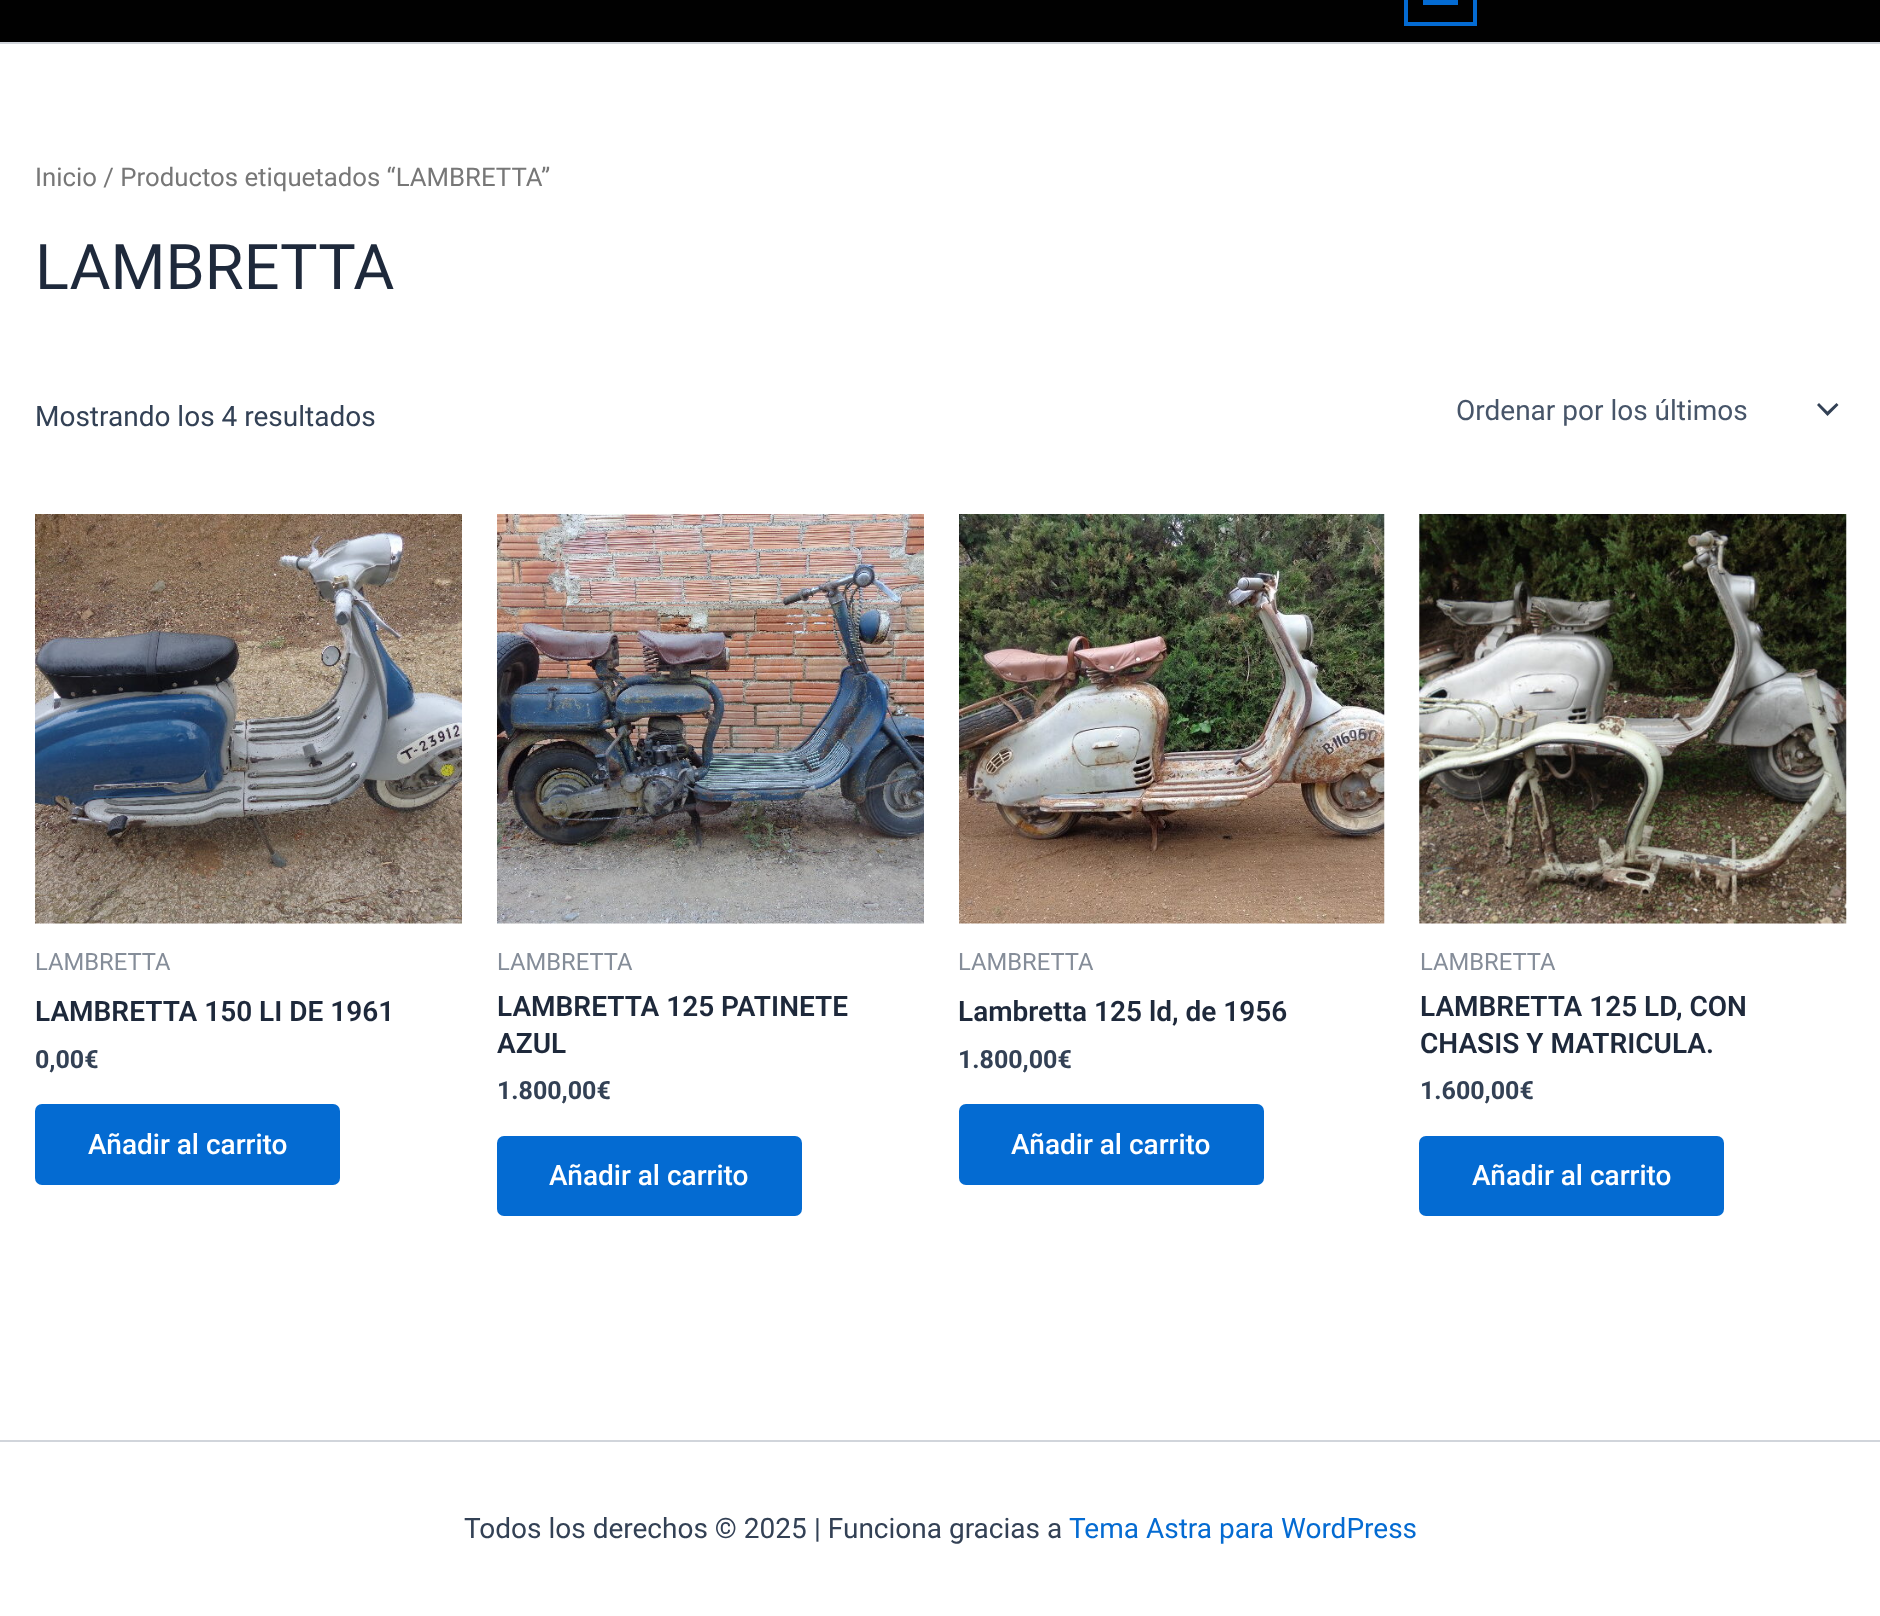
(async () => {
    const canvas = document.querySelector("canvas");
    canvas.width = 1880;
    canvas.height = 1616;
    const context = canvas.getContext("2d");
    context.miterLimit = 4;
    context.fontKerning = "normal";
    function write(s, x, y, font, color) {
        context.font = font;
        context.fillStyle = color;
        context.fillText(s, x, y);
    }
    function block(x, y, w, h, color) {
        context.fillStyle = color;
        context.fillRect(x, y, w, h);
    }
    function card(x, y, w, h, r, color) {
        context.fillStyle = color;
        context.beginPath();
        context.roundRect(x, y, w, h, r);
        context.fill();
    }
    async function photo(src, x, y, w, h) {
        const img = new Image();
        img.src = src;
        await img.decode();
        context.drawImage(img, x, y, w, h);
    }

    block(0, 0, 1880, 1616, "rgb(255, 255, 255)");
    block(0, 0, 1880, 42, "rgb(1, 1, 1)");
    block(0, 42, 1880, 2, "rgb(209, 213, 219)");
    context.strokeStyle = "rgb(4, 107, 210)";
    context.lineWidth = 4;
    context.strokeRect(1406, -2, 69, 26);
    block(1423, 0, 35, 5, "rgb(4, 107, 210)");
    write("Inicio / Productos etiquetados “LAMBRETTA”", 35, 186, "25.75px Roboto", "rgb(119, 119, 119)");
    write("LAMBRETTA", 35, 289, "63px Roboto", "rgb(30, 41, 59)");
    write("Mostrando los 4 resultados", 35, 426, "28px Roboto", "rgb(51, 65, 85)");
    context.beginPath();
    context.moveTo(1817, 405);
    context.lineTo(1827.5, 416);
    context.lineTo(1838.5, 405);
    context.lineTo(1836.5, 403);
    context.lineTo(1827.5, 411.5);
    context.lineTo(1819, 403);
    context.closePath();
    context.fill();
    write("Ordenar por los últimos", 1456, 420, "28px Roboto", "rgb(71, 85, 105)");
    await photo("media/1.png", 35, 514, 427, 410);
    write("LAMBRETTA", 35, 970, "23.75px Roboto", "rgb(133, 141, 153)");
    write("LAMBRETTA 150 LI DE 1961", 35, 1021, "600 28px Roboto", "rgb(30, 41, 59)");
    write("0,00€", 35, 1068, "bold 25px Roboto", "rgb(51, 65, 85)");
    card(35, 1104, 305, 81, 7, "rgb(4, 107, 210)");
    write("Añadir al carrito", 88, 1154, "500 28px Roboto", "rgb(255, 255, 255)");
    await photo("media/2.png", 497, 514, 427, 410);
    write("LAMBRETTA", 497, 970, "23.75px Roboto", "rgb(133, 141, 153)");
    write("LAMBRETTA 125 PATINETE", 497, 1016, "600 28px Roboto", "rgb(30, 41, 59)");
    write("AZUL", 497, 1053, "600 28px Roboto", "rgb(30, 41, 59)");
    write("1.800,00€", 497, 1099, "bold 25px Roboto", "rgb(51, 65, 85)");
    card(497, 1136, 305, 80, 7, "rgb(4, 107, 210)");
    write("Añadir al carrito", 549, 1185, "500 28px Roboto", "rgb(255, 255, 255)");
    await photo("media/3.png", 959, 514, 426, 410);
    write("LAMBRETTA", 958, 970, "23.75px Roboto", "rgb(133, 141, 153)");
    write("Lambretta 125 ld, de 1956", 958, 1021, "600 28px Roboto", "rgb(30, 41, 59)");
    write("1.800,00€", 958, 1068, "bold 25px Roboto", "rgb(51, 65, 85)");
    card(959, 1104, 305, 81, 7, "rgb(4, 107, 210)");
    write("Añadir al carrito", 1011, 1154, "500 28px Roboto", "rgb(255, 255, 255)");
    await photo("media/4.png", 1419, 514, 428, 410);
    write("LAMBRETTA", 1420, 970, "23.75px Roboto", "rgb(133, 141, 153)");
    write("LAMBRETTA 125 LD, CON", 1420, 1016, "600 28px Roboto", "rgb(30, 41, 59)");
    write("CHASIS Y MATRICULA.", 1420, 1053, "600 28px Roboto", "rgb(30, 41, 59)");
    write("1.600,00€", 1420, 1099, "bold 25px Roboto", "rgb(51, 65, 85)");
    card(1419, 1136, 305, 80, 7, "rgb(4, 107, 210)");
    write("Añadir al carrito", 1472, 1185, "500 28px Roboto", "rgb(255, 255, 255)");
    block(0, 1440, 1880, 2, "rgb(209, 213, 219)");
    write("Todos los derechos © 2025", 464, 1538, "28px Roboto", "rgb(51, 65, 85)");
    write("| Funciona gracias a", 814, 1538, "28px Roboto", "rgb(51, 65, 85)");
    write("Tema Astra para WordPress", 1069, 1538, "28px Roboto", "rgb(4, 107, 210)");
})();
